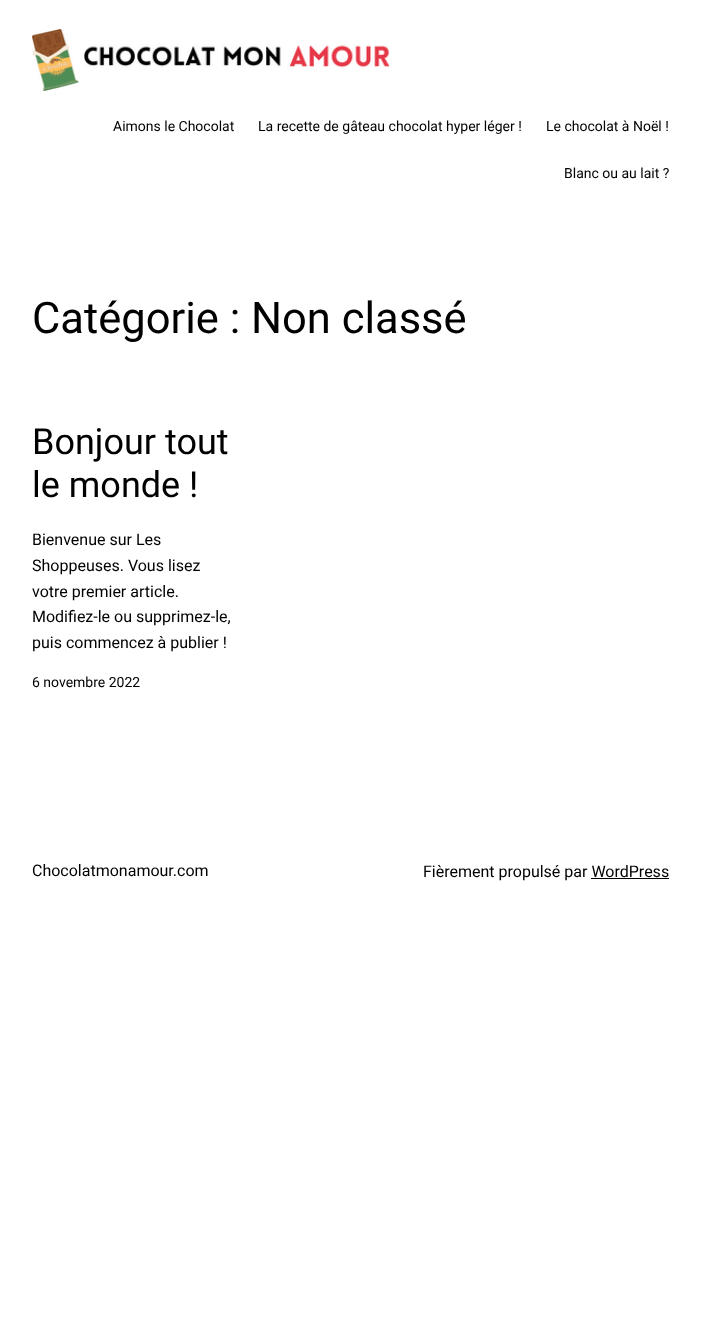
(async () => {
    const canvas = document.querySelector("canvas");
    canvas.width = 701;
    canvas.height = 1319;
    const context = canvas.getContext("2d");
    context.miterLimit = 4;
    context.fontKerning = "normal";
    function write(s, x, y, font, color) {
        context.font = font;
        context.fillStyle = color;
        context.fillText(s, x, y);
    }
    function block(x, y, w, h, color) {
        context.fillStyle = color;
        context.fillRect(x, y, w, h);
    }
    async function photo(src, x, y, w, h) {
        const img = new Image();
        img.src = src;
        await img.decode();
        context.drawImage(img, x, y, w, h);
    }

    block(0, 0, 701, 1319, "rgb(255, 255, 255)");
    await photo("media/1.png", 32, 29, 358, 62);
    write("Aimons le Chocolat", 113, 131, "14px Roboto", "rgb(0, 0, 0)");
    write("La recette de gâteau chocolat hyper léger !", 258, 131, "14px Roboto", "rgb(0, 0, 0)");
    write("Le chocolat à Noël !", 546, 131, "14px Roboto", "rgb(0, 0, 0)");
    write("Blanc ou au lait ?", 564, 178, "14px Roboto", "rgb(0, 0, 0)");
    write("Catégorie : Non classé", 32, 333, "43.5px Roboto", "rgb(0, 0, 0)");
    write("Bonjour tout", 32, 454, "36px Roboto", "rgb(0, 0, 0)");
    write("le monde !", 32, 497, "36px Roboto", "rgb(0, 0, 0)");
    write("Bienvenue sur Les", 32, 545, "16px Roboto", "rgb(0, 0, 0)");
    write("Shoppeuses. Vous lisez", 32, 571, "16px Roboto", "rgb(0, 0, 0)");
    write("votre premier article.", 32, 597, "16px Roboto", "rgb(0, 0, 0)");
    write("Modifiez-le ou supprimez-le,", 32, 622, "16px Roboto", "rgb(0, 0, 0)");
    write("puis commencez à publier !", 32, 648, "16px Roboto", "rgb(0, 0, 0)");
    write("6 novembre 2022", 32, 687, "14px Roboto", "rgb(0, 0, 0)");
    write("Chocolatmonamour.com", 32, 876, "16px Roboto", "rgb(0, 0, 0)");
    write("Fièrement propulsé par WordPress", 423, 877, "16px Roboto", "rgb(0, 0, 0)");
    block(591, 878, 78, 1, "rgb(0, 0, 0)");
})();
